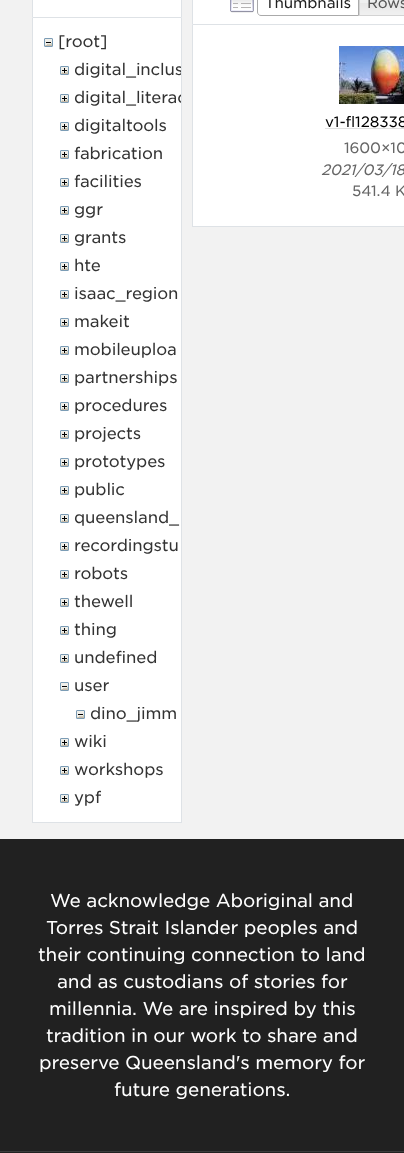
(async () => {
    const canvas = document.querySelector("canvas");
    canvas.width = 404;
    canvas.height = 1153;
    const context = canvas.getContext("2d");
    context.miterLimit = 4;
    context.fontKerning = "normal";
    function write(s, x, y, font, color) {
        context.font = font;
        context.fillStyle = color;
        context.fillText(s, x, y);
    }
    function block(x, y, w, h, color) {
        context.fillStyle = color;
        context.fillRect(x, y, w, h);
    }
    async function photo(src, x, y, w, h) {
        const img = new Image();
        img.src = src;
        await img.decode();
        context.drawImage(img, x, y, w, h);
    }

    block(0, 0, 404, 1153, "rgb(242, 242, 242)");
    context.fillStyle = "rgb(255, 255, 255)";
    context.beginPath();
    context.rect(32.5, -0.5, 149, 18);
    context.fill();
    context.strokeStyle = "rgb(222, 226, 230)";
    context.stroke();
    block(33, 18, 148, 804, "rgb(255, 255, 255)");
    block(181, 18, 1, 805, "rgb(222, 226, 230)");
    block(32, 822, 150, 1, "rgb(222, 226, 230)");
    block(32, 18, 1, 805, "rgb(222, 226, 230)");
    await photo("media/1.png", 44, 38, 9, 9);
    context.letterSpacing = "-0.15px";
    write("[root]", 58, 47, "16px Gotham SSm", "rgb(51, 51, 51)");
    await photo("media/2.png", 60, 66, 9, 9);
    context.save();
    context.beginPath();
    context.rect(33, 18, 148, 804);
    context.clip();
    write("digital_inclus", 74, 75, "16px Gotham SSm", "rgb(51, 51, 51)");
    context.restore();
    await photo("media/2.png", 60, 94, 9, 9);
    context.save();
    context.beginPath();
    context.rect(33, 18, 148, 804);
    context.clip();
    write("digital_literac", 74, 103, "16px Gotham SSm", "rgb(51, 51, 51)");
    context.restore();
    await photo("media/2.png", 60, 122, 9, 9);
    write("digitaltools", 74, 131, "16px Gotham SSm", "rgb(51, 51, 51)");
    await photo("media/2.png", 60, 150, 9, 9);
    write("fabrication", 74, 159, "16px Gotham SSm", "rgb(51, 51, 51)");
    await photo("media/2.png", 60, 178, 9, 9);
    write("facilities", 74, 187, "16px Gotham SSm", "rgb(51, 51, 51)");
    await photo("media/2.png", 60, 206, 9, 9);
    write("ggr", 74, 215, "16px Gotham SSm", "rgb(51, 51, 51)");
    await photo("media/2.png", 60, 234, 9, 9);
    write("grants", 74, 243, "16px Gotham SSm", "rgb(51, 51, 51)");
    await photo("media/2.png", 60, 262, 9, 9);
    write("hte", 74, 271, "16px Gotham SSm", "rgb(51, 51, 51)");
    await photo("media/2.png", 60, 290, 9, 9);
    write("isaac_region", 74, 299, "16px Gotham SSm", "rgb(51, 51, 51)");
    await photo("media/2.png", 60, 318, 9, 9);
    write("makeit", 74, 327, "16px Gotham SSm", "rgb(51, 51, 51)");
    await photo("media/2.png", 60, 346, 9, 9);
    write("mobileuploa", 74, 355, "16px Gotham SSm", "rgb(51, 51, 51)");
    await photo("media/2.png", 60, 374, 9, 9);
    write("partnerships", 74, 383, "16px Gotham SSm", "rgb(51, 51, 51)");
    await photo("media/2.png", 60, 402, 9, 9);
    write("procedures", 74, 411, "16px Gotham SSm", "rgb(51, 51, 51)");
    await photo("media/2.png", 60, 430, 9, 9);
    write("projects", 74, 439, "16px Gotham SSm", "rgb(51, 51, 51)");
    await photo("media/2.png", 60, 458, 9, 9);
    write("prototypes", 74, 467, "16px Gotham SSm", "rgb(51, 51, 51)");
    await photo("media/2.png", 60, 486, 9, 9);
    write("public", 74, 495, "16px Gotham SSm", "rgb(51, 51, 51)");
    await photo("media/2.png", 60, 514, 9, 9);
    write("queensland_", 74, 523, "16px Gotham SSm", "rgb(51, 51, 51)");
    await photo("media/2.png", 60, 542, 9, 9);
    write("recordingstu", 74, 551, "16px Gotham SSm", "rgb(51, 51, 51)");
    await photo("media/2.png", 60, 570, 9, 9);
    write("robots", 74, 579, "16px Gotham SSm", "rgb(51, 51, 51)");
    await photo("media/2.png", 60, 598, 9, 9);
    write("thewell", 74, 607, "16px Gotham SSm", "rgb(51, 51, 51)");
    await photo("media/2.png", 60, 626, 9, 9);
    write("thing", 74, 635, "16px Gotham SSm", "rgb(51, 51, 51)");
    await photo("media/2.png", 60, 654, 9, 9);
    write("undefined", 74, 663, "16px Gotham SSm", "rgb(51, 51, 51)");
    await photo("media/1.png", 60, 682, 9, 9);
    write("user", 74, 691, "16px Gotham SSm", "rgb(51, 51, 51)");
    await photo("media/1.png", 76, 710, 9, 9);
    write("dino_jimm", 90, 719, "16px Gotham SSm", "rgb(51, 51, 51)");
    await photo("media/2.png", 60, 738, 9, 9);
    write("wiki", 74, 747, "16px Gotham SSm", "rgb(51, 51, 51)");
    await photo("media/2.png", 60, 766, 9, 9);
    write("workshops", 74, 775, "16px Gotham SSm", "rgb(51, 51, 51)");
    await photo("media/2.png", 60, 794, 9, 9);
    write("ypf", 74, 803, "16px Gotham SSm", "rgb(51, 51, 51)");
    context.fillStyle = "rgb(255, 255, 255)";
    context.beginPath();
    context.rect(192.5, -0.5, 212, 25);
    context.fill();
    context.stroke();
    await photo("media/3.png", 230, 0, 24, 13);
    context.beginPath();
    context.moveTo(261, -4.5);
    context.lineTo(358.5, -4.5);
    context.lineTo(358.5, 15.5);
    context.lineTo(261, 15.5);
    context.bezierCurveTo(259, 15.5, 257.5, 14, 257.5, 12);
    context.lineTo(257.5, -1);
    context.bezierCurveTo(257.5, -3, 259, -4.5, 261, -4.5);
    context.closePath();
    context.strokeStyle = "rgb(170, 170, 170)";
    context.stroke();
    write("Thumbnails", 265, 8, "14.5px Gotham SSm", "rgb(33, 33, 33)");
    await photo("media/4.png", 360, 0, 44, 15);
    context.strokeStyle = "rgb(211, 211, 211)";
    context.strokeRect(359.5, -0.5, 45, 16);
    write("Rows", 367, 8, "14.5px Gotham SSm", "rgb(85, 85, 85)");
    block(193, 25, 211, 201, "rgb(255, 255, 255)");
    block(192, 226, 212, 1, "rgb(222, 226, 230)");
    block(192, 25, 1, 202, "rgb(222, 226, 230)");
    await photo("media/5.png", 339, 46, 65, 58);
    write("v1-fl128338", 325, 127, "14.5px Gotham SSm", "rgb(0, 0, 0)");
    block(325, 128, 79, 1, "rgb(224, 224, 224)");
    write("1600×10", 344, 153, "14.5px Gotham SSm", "rgb(102, 102, 102)");
    write("2021/03/18", 321, 175, "italic 14.5px Gotham SSm", "rgb(102, 102, 102)");
    write("541.4 K", 352, 196, "14.5px Gotham SSm", "rgb(102, 102, 102)");
    block(0, 839, 404, 314, "rgb(33, 33, 33)");
    write("We acknowledge Aboriginal and", 50, 907, "18px Gotham SSm", "rgb(255, 255, 255)");
    write("Torres Strait Islander peoples and", 46, 934, "18px Gotham SSm", "rgb(255, 255, 255)");
    write("their continuing connection to land", 38, 961, "18px Gotham SSm", "rgb(255, 255, 255)");
    write("and as custodians of stories for", 57, 988, "18px Gotham SSm", "rgb(255, 255, 255)");
    write("millennia. We are inspired by this", 49, 1015, "18px Gotham SSm", "rgb(255, 255, 255)");
    write("tradition in our work to share and", 46, 1042, "18px Gotham SSm", "rgb(255, 255, 255)");
    write("preserve Queensland's memory for", 39, 1069, "18px Gotham SSm", "rgb(255, 255, 255)");
    write("future generations.", 114, 1096, "18px Gotham SSm", "rgb(255, 255, 255)");
    block(0, 1151, 404, 1, "rgb(60, 60, 60)");
})();
